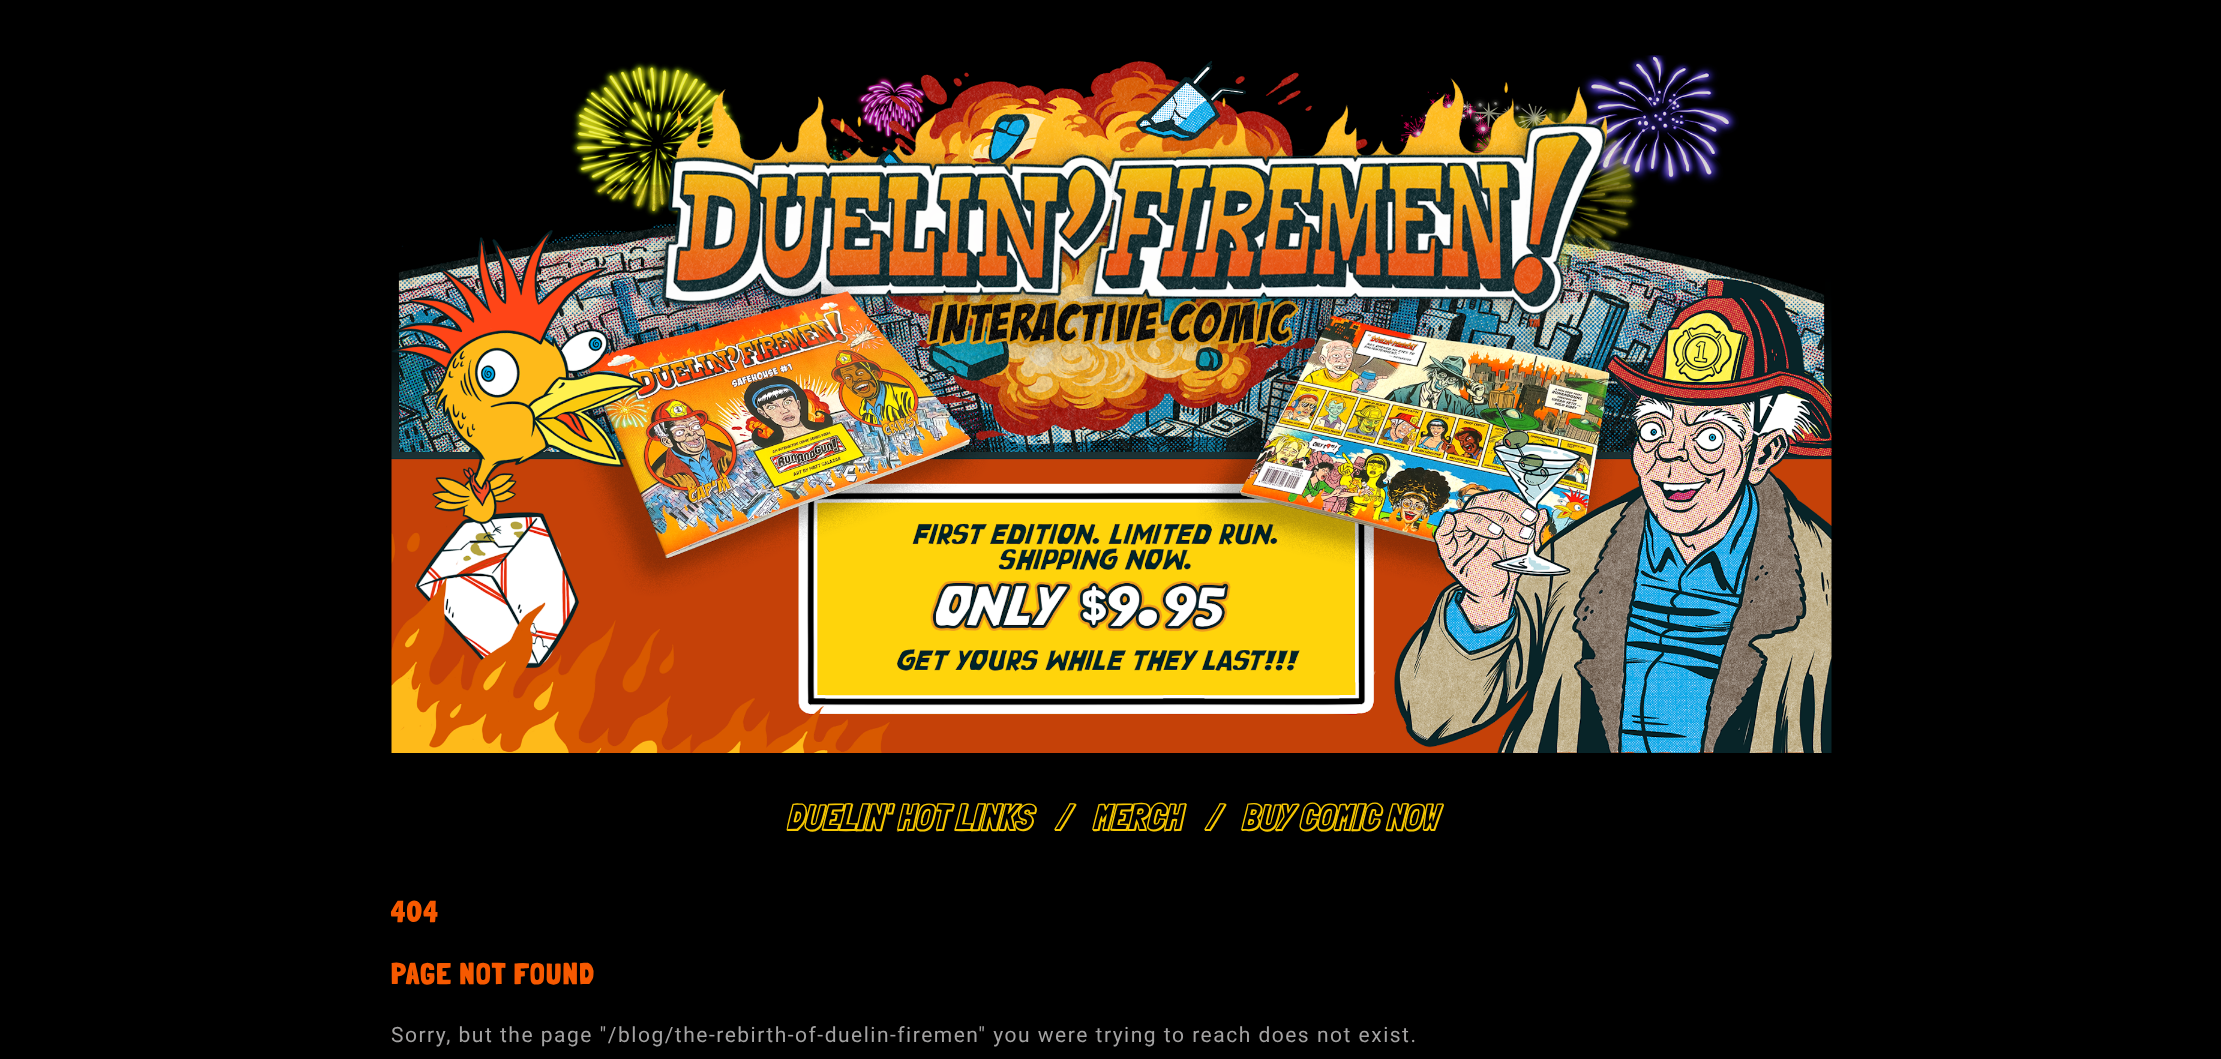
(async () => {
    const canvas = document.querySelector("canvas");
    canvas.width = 2221;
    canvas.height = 1059;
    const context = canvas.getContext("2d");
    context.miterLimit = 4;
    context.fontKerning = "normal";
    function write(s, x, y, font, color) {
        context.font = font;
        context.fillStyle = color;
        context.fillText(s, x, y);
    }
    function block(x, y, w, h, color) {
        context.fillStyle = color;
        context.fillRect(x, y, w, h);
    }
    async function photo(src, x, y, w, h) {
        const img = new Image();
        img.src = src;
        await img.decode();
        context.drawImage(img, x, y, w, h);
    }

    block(0, 0, 2221, 1059, "rgb(0, 0, 0)");
    await photo("media/1.png", 391, 55, 1441, 698);
    write("DUELIN' HOT LINKS", 785, 830, "italic bold 36px Londrina Shadow", "rgb(246, 199, 0)");
    write("/", 1054, 830, "italic bold 36px Londrina Shadow", "rgb(246, 199, 0)");
    write("MERCH", 1091, 830, "italic bold 36px Londrina Shadow", "rgb(246, 199, 0)");
    write("/", 1204, 830, "italic bold 36px Londrina Shadow", "rgb(246, 199, 0)");
    write("BUY COMIC NOW", 1240, 830, "italic bold 36px Londrina Shadow", "rgb(246, 199, 0)");
    context.letterSpacing = "1.5px";
    write("404", 391, 922, "900 30px Londrina Solid", "rgb(246, 89, 0)");
    write("PAGE NOT FOUND", 391, 984, "900 30px Londrina Solid", "rgb(246, 89, 0)");
    write("Sorry, but the page \"/blog/the-rebirth-of-duelin-firemen\" you were trying to reach does not exist.", 391, 1042, "21px Roboto", "rgb(163, 162, 162)");
})();
